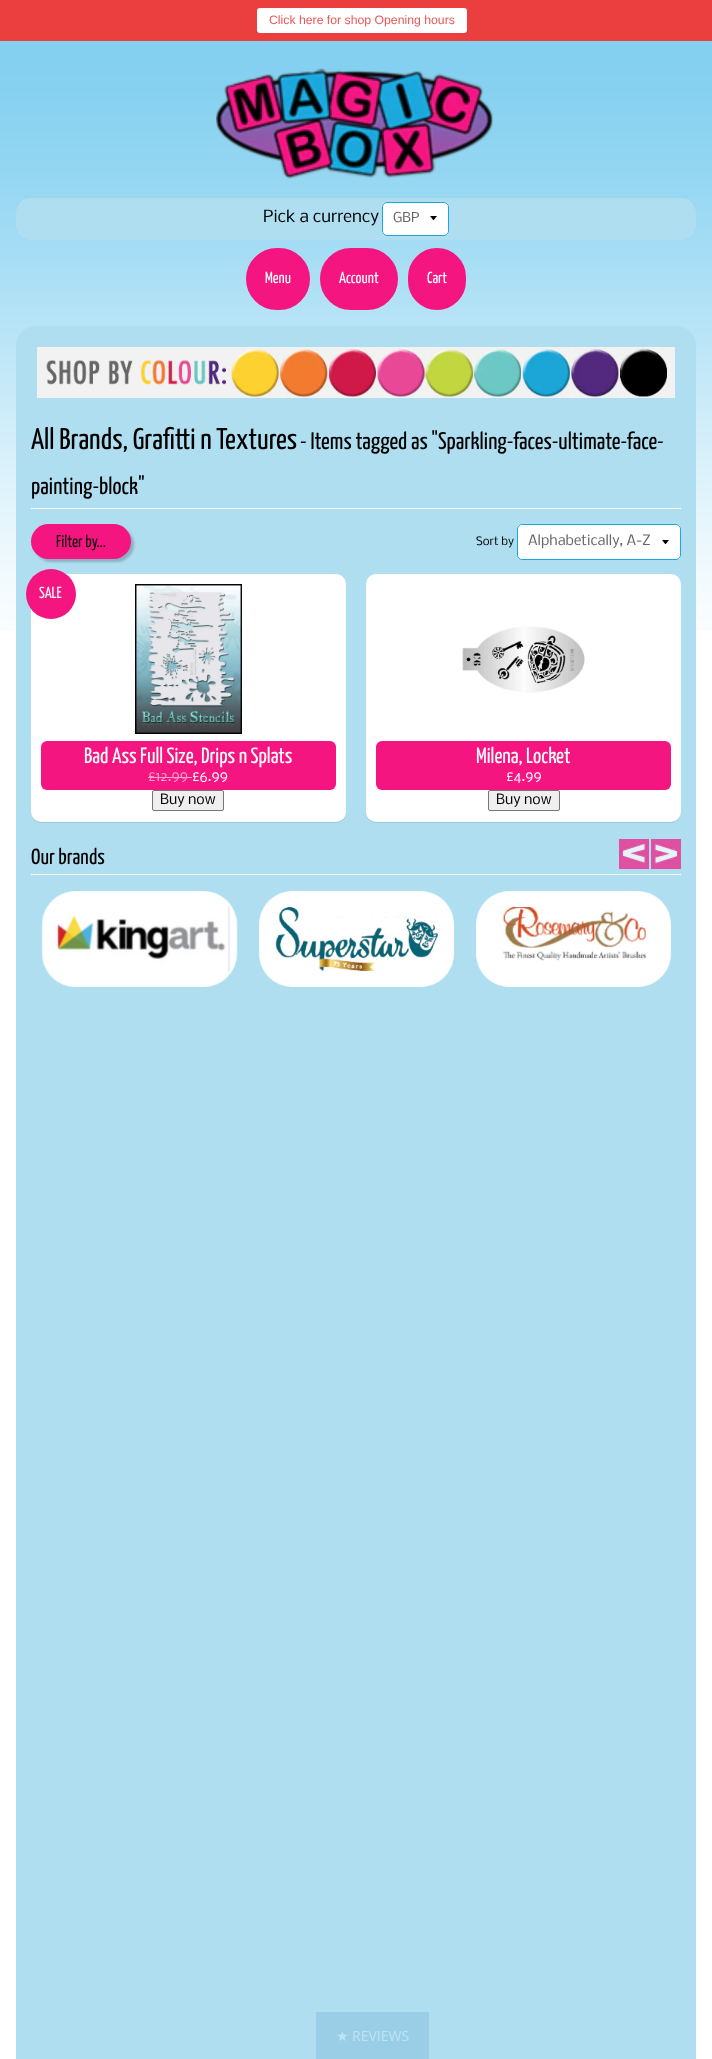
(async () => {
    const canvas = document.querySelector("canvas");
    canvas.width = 712;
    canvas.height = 2059;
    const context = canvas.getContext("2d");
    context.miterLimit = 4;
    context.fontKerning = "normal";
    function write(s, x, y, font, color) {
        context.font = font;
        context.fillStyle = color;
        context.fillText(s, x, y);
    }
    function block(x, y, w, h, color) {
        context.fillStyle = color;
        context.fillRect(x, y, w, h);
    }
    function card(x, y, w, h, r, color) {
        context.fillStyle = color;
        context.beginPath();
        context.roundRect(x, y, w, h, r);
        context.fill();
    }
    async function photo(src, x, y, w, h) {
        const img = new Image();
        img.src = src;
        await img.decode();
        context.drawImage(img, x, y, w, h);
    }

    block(0, 0, 712, 2059, "rgb(255, 255, 255)");
    await photo("media/1.png", 0, 41, 712, 590);
    block(0, 0, 712, 41, "rgb(235, 62, 62)");
    card(257, 8, 210, 25, 3, "rgb(255, 255, 255)");
    write("Click here for shop Opening hours", 269, 24, "12.25px Liberation Sans", "rgb(232, 87, 86)");
    await photo("media/2.png", 216, 68, 277, 111);
    card(16, 198, 680, 42, 15, "rgb(174, 222, 240)");
    write("Pick a currency", 263, 222, "16px Nobile", "rgb(0, 0, 0)");
    card(382, 202, 67, 34, 5, "rgb(255, 255, 255)");
    context.fillStyle = "rgb(0, 0, 0)";
    context.beginPath();
    context.moveTo(430, 216);
    context.bezierCurveTo(434.5, 221.5, 432.5, 221.5, 437, 216);
    context.closePath();
    context.fill();
    context.beginPath();
    context.roundRect(382.5, 202.5, 66, 33, 4.5);
    context.strokeStyle = "rgb(28, 167, 220)";
    context.stroke();
    write("GBP", 393, 222, "13px Nobile", "rgb(102, 102, 102)");
    context.fillStyle = "rgb(244, 21, 129)";
    context.beginPath();
    context.roundRect(247.5, 249.5, 61, 59, 29.5);
    context.fill();
    context.strokeStyle = "rgb(244, 21, 129)";
    context.lineWidth = 3;
    context.stroke();
    write("Menu", 265, 283, "200 16px Yanone Kaffeesatz", "rgb(255, 255, 255)");
    context.fillStyle = "rgb(244, 21, 129)";
    context.beginPath();
    context.roundRect(321.5, 249.5, 75, 59, 29.5);
    context.fill();
    context.stroke();
    write("Account", 339, 283, "200 16px Yanone Kaffeesatz", "rgb(255, 255, 255)");
    context.fillStyle = "rgb(244, 21, 129)";
    context.beginPath();
    context.roundRect(409.5, 249.5, 55, 59, 27.5);
    context.fill();
    context.stroke();
    write("Cart", 427, 283, "200 16px Yanone Kaffeesatz", "rgb(255, 255, 255)");
    card(16, 326, 680, 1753, 20, "rgb(174, 222, 240)");
    await photo("media/3.png", 37, 347, 638, 51);
    block(31, 508, 650, 1, "rgb(255, 255, 255)");
    write("All Brands, Grafitti n Textures", 31, 449, "200 30px Yanone Kaffeesatz", "rgb(0, 0, 0)");
    write("- Items tagged as \"Sparkling-faces-ultimate-face-", 300, 449, "200 24px Yanone Kaffeesatz", "rgb(0, 0, 0)");
    write("painting-block\"", 31, 494, "200 24px Yanone Kaffeesatz", "rgb(0, 0, 0)");
    context.fillStyle = "rgba(0, 0, 0, 0.2)";
    context.filter = "blur(1px)";
    context.beginPath();
    context.roundRect(34, 527, 100, 35, 17.5);
    context.fill();
    context.filter = "none";
    card(31, 524, 100, 35, 17.5, "rgb(244, 21, 129)");
    write("Filter by...", 56, 547, "200 17px Yanone Kaffeesatz", "rgb(20, 14, 14)");
    write("Sort by", 476, 545, "11px Nobile", "rgb(0, 0, 0)");
    card(517, 524, 164, 36, 5, "rgb(255, 255, 255)");
    context.fillStyle = "rgb(0, 0, 0)";
    context.beginPath();
    context.moveTo(662, 540);
    context.bezierCurveTo(666.5, 545.5, 664.5, 545.5, 669, 540);
    context.closePath();
    context.fill();
    context.beginPath();
    context.roundRect(517.5, 524.5, 163, 35, 4.5);
    context.strokeStyle = "rgb(28, 167, 220)";
    context.lineWidth = 1;
    context.stroke();
    write("Alphabetically, A-Z", 528, 545, "13.5px Nobile", "rgb(102, 102, 102)");
    context.fillStyle = "rgba(0, 0, 0, 0.1)";
    context.filter = "blur(0.5px)";
    context.beginPath();
    context.roundRect(31, 575, 315, 248, 10);
    context.fill();
    context.filter = "none";
    card(31, 574, 315, 248, 10, "rgb(255, 255, 255)");
    context.fillStyle = "rgb(244, 21, 129)";
    context.beginPath();
    context.arc(51, 594, 25, 0, Math.PI * 2);
    context.fill();
    write("SALE", 39, 598, "200 16px Yanone Kaffeesatz", "rgb(255, 255, 255)");
    await photo("media/4.png", 135, 584, 107, 150);
    card(41, 741, 295, 49, 6, "rgb(244, 21, 129)");
    write("Bad Ass Full Size, Drips n Splats", 84, 763, "200 22px Yanone Kaffeesatz", "rgb(255, 255, 255)");
    write("£12.99", 148, 781, "13.5px Nobile", "rgb(251, 161, 205)");
    block(148, 777, 44, 1, "rgb(251, 161, 205)");
    write("£6.99", 192, 781, "13.5px Nobile", "rgb(255, 255, 255)");
    context.fillStyle = "rgb(239, 239, 239)";
    context.beginPath();
    context.roundRect(152.5, 790.5, 71, 20, 1.5);
    context.fill();
    context.strokeStyle = "rgb(118, 118, 118)";
    context.stroke();
    write("Buy now", 160, 804, "13.5px Nobile", "rgb(0, 0, 0)");
    context.fillStyle = "rgba(0, 0, 0, 0.1)";
    context.filter = "blur(0.5px)";
    context.beginPath();
    context.roundRect(366, 575, 315, 248, 10);
    context.fill();
    context.filter = "none";
    card(366, 574, 315, 248, 10, "rgb(255, 255, 255)");
    await photo("media/5.png", 462, 626, 123, 67);
    card(376, 741, 295, 49, 6, "rgb(244, 21, 129)");
    write("Milena, Locket", 476, 763, "200 22px Yanone Kaffeesatz", "rgb(255, 255, 255)");
    write("£4.99", 506, 781, "13.5px Nobile", "rgb(255, 255, 255)");
    context.fillStyle = "rgb(239, 239, 239)";
    context.beginPath();
    context.roundRect(488.5, 790.5, 71, 20, 1.5);
    context.fill();
    context.stroke();
    write("Buy now", 496, 804, "13.5px Nobile", "rgb(0, 0, 0)");
    await photo("media/6.png", 619, 839, 30, 30);
    await photo("media/7.png", 651, 839, 30, 30);
    await photo("media/8.png", 41, 891, 197, 97);
    await photo("media/9.png", 258, 890, 197, 98);
    await photo("media/10.png", 475, 890, 197, 98);
    block(31, 874, 650, 1, "rgb(255, 255, 255)");
    write("Our brands", 31, 864, "200 22px Yanone Kaffeesatz", "rgb(0, 0, 0)");
    block(316, 2012, 113, 47, "rgb(154, 206, 230)");
    write("★", 336, 2041, "14px DejaVu Sans", "rgb(190, 228, 243)");
    write("REVIEWS", 352, 2041, "14px Open Sans", "rgb(190, 228, 243)");
})();
